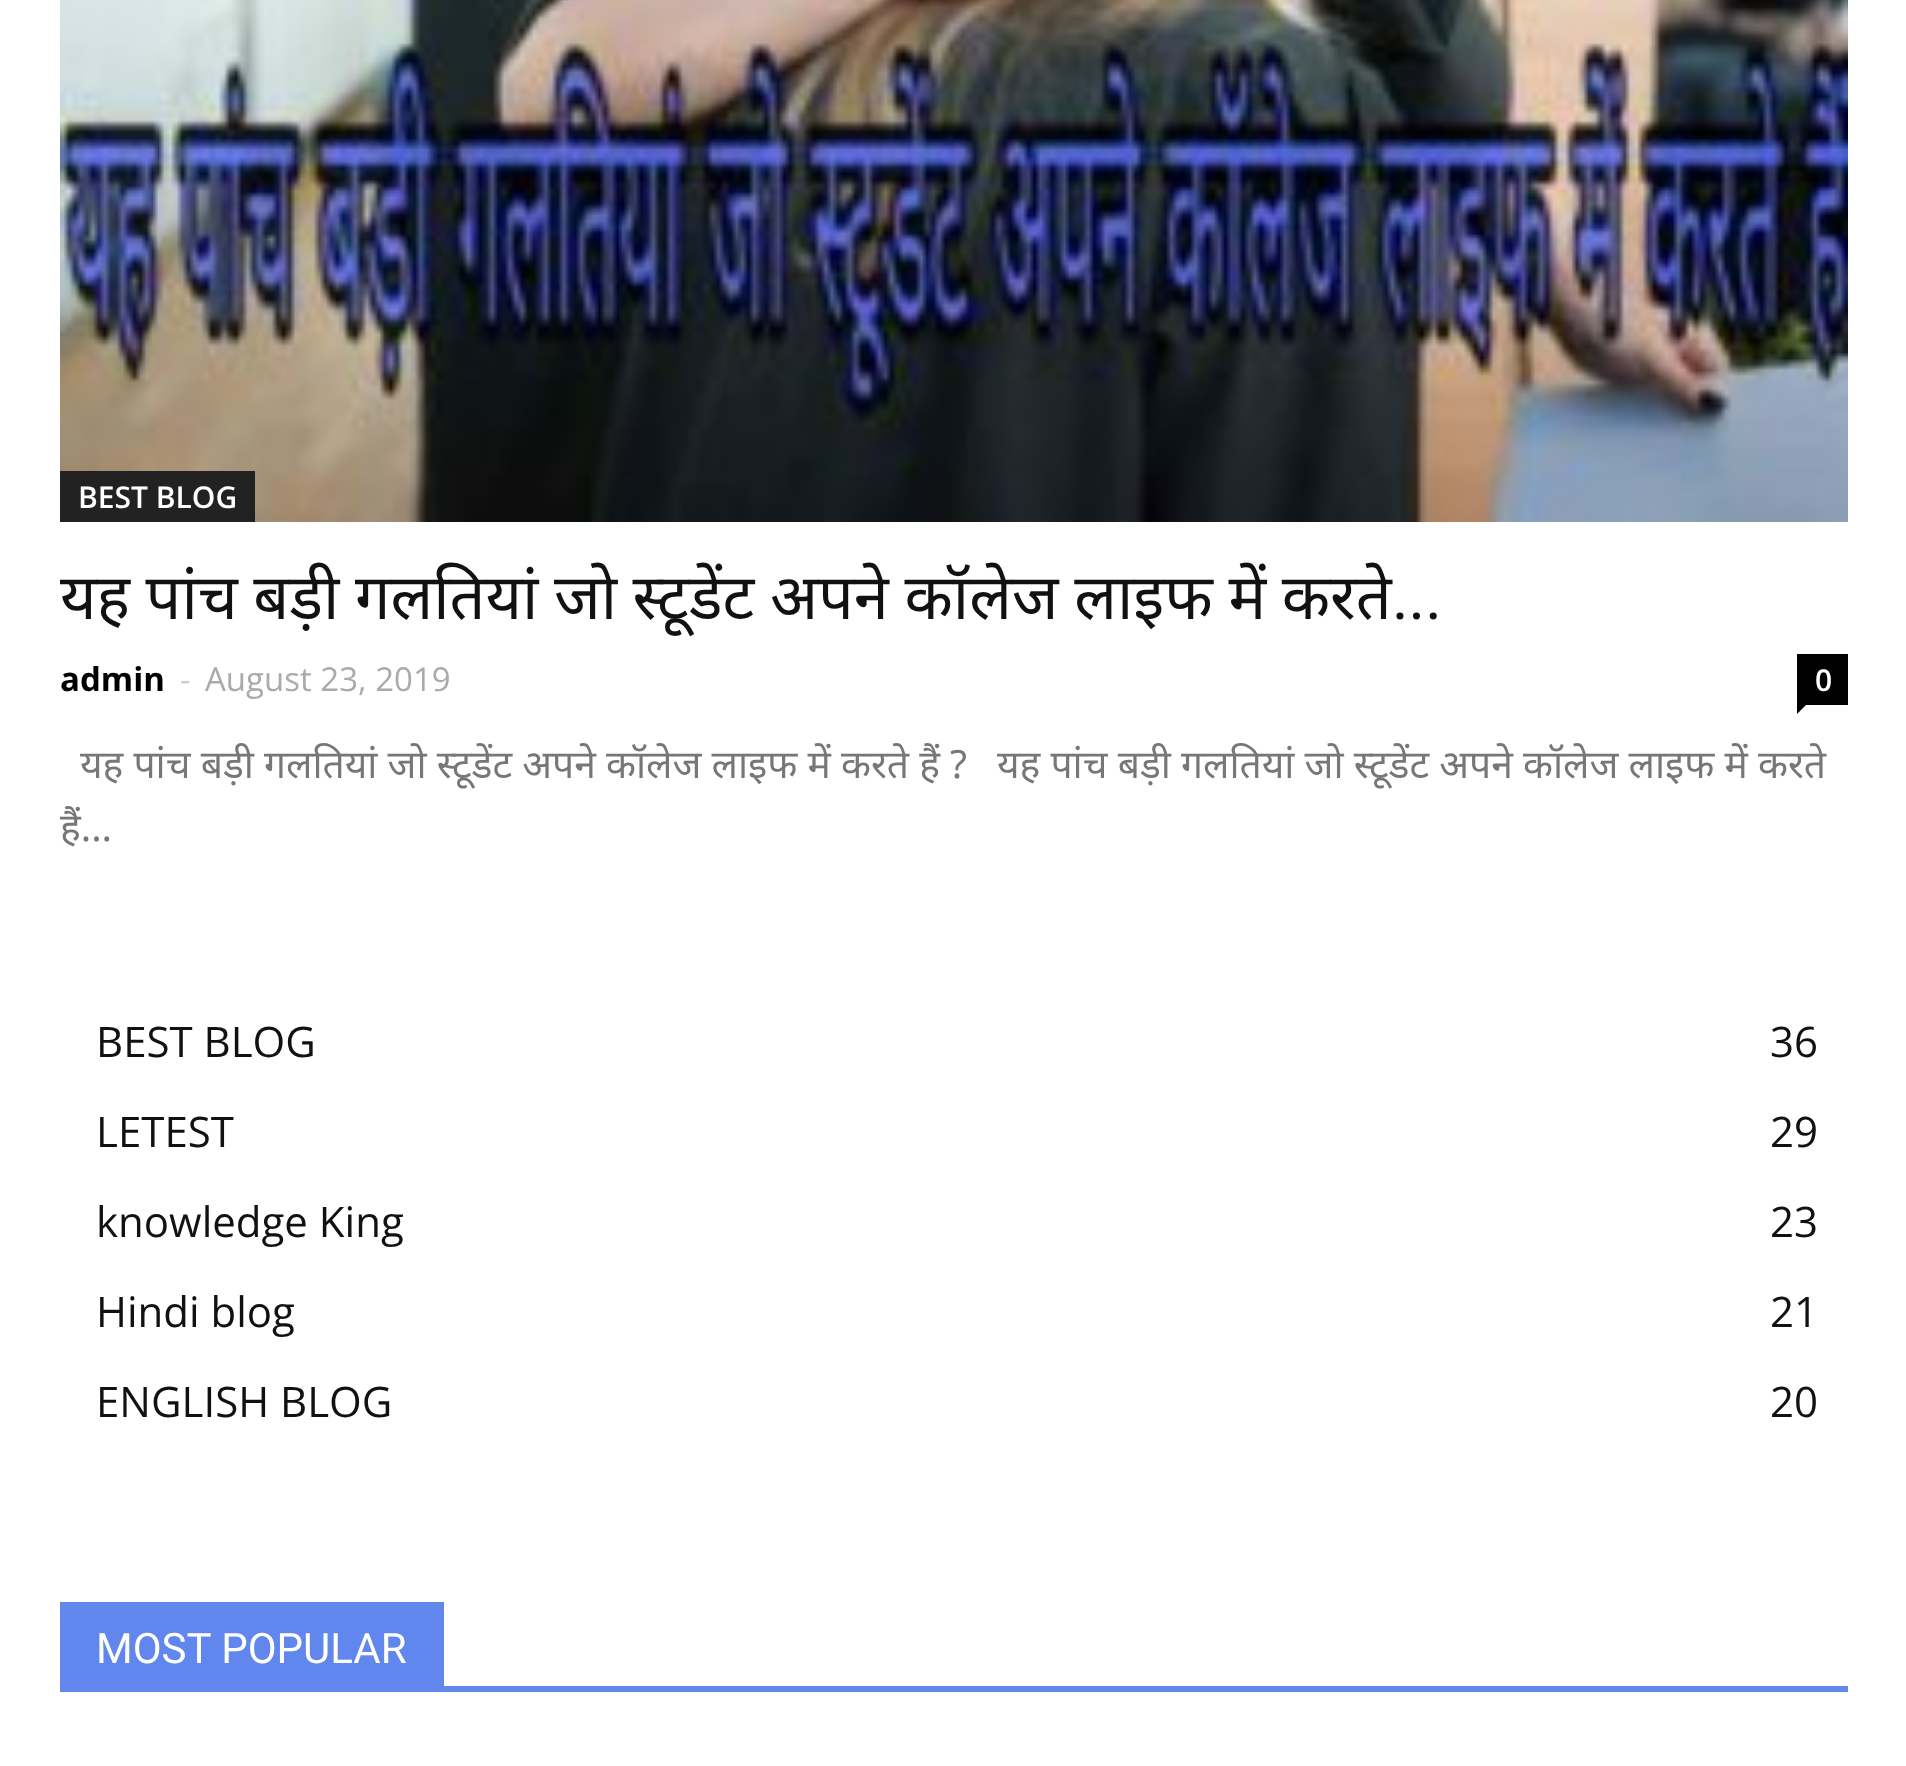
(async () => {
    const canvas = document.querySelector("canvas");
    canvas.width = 1906;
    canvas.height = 1766;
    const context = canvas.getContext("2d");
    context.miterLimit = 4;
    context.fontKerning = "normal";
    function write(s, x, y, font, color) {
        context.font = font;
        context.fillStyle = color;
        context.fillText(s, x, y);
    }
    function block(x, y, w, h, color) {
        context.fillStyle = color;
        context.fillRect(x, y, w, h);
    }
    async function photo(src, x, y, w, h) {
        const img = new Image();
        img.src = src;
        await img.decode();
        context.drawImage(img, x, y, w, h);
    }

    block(0, 0, 1906, 1766, "rgb(255, 255, 255)");
    await photo("media/1.png", 60, 0, 1788, 522);
    block(60, 471, 195, 51, "rgb(34, 34, 34)");
    write("BEST BLOG", 78, 508, "600 30px Open Sans", "rgb(255, 255, 255)");
    context.wordSpacing = "-0.75px";
    write("यह पांच बड़ी गलतियां जो स्टूडेंट अपने कॉलेज लाइफ में करते", 60, 619, "63px Noto Sans", "rgb(17, 17, 17)");
    context.wordSpacing = "0px";
    write("...", 1392, 619, "63px Roboto", "rgb(17, 17, 17)");
    write("admin", 60, 691, "bold 33px Open Sans", "rgb(0, 0, 0)");
    write("-", 180, 691, "33px Open Sans", "rgb(204, 204, 204)");
    write("August 23, 2019", 205, 691, "33px Open Sans", "rgb(170, 170, 170)");
    block(1797, 654, 51, 51, "rgb(0, 0, 0)");
    write("0", 1815, 691, "600 30px Open Sans", "rgb(255, 255, 255)");
    context.fillStyle = "rgb(0, 0, 0)";
    context.beginPath();
    context.moveTo(1797, 705);
    context.lineTo(1806, 705);
    context.lineTo(1797, 714);
    context.closePath();
    context.fill();
    write("यह पांच बड़ी गलतियां जो स्टूडेंट अपने कॉलेज लाइफ में करते हैं ?", 80, 778, "39px Noto Sans", "rgb(119, 119, 119)");
    write("यह पांच बड़ी गलतियां जो स्टूडेंट अपने कॉलेज लाइफ में करते", 997, 778, "39px Noto Sans", "rgb(119, 119, 119)");
    write("हैं...", 60, 841, "39px Noto Sans", "rgb(119, 119, 119)");
    write("BEST BLOG", 96, 1057, "42px Open Sans", "rgb(17, 17, 17)");
    write("36", 1770, 1057, "42px Open Sans", "rgb(17, 17, 17)");
    write("LETEST", 96, 1147, "42px Open Sans", "rgb(17, 17, 17)");
    write("29", 1770, 1147, "42px Open Sans", "rgb(17, 17, 17)");
    write("knowledge King", 96, 1237, "42px Open Sans", "rgb(17, 17, 17)");
    write("23", 1770, 1237, "42px Open Sans", "rgb(17, 17, 17)");
    write("Hindi blog", 96, 1327, "42px Open Sans", "rgb(17, 17, 17)");
    write("21", 1770, 1327, "42px Open Sans", "rgb(17, 17, 17)");
    write("ENGLISH BLOG", 96, 1417, "42px Open Sans", "rgb(17, 17, 17)");
    write("20", 1770, 1417, "42px Open Sans", "rgb(17, 17, 17)");
    block(60, 1686, 1788, 6, "rgb(97, 134, 237)");
    block(60, 1602, 384, 84, "rgb(97, 134, 237)");
    write("MOST POPULAR", 96, 1663, "42px Roboto", "rgb(255, 255, 255)");
})();
